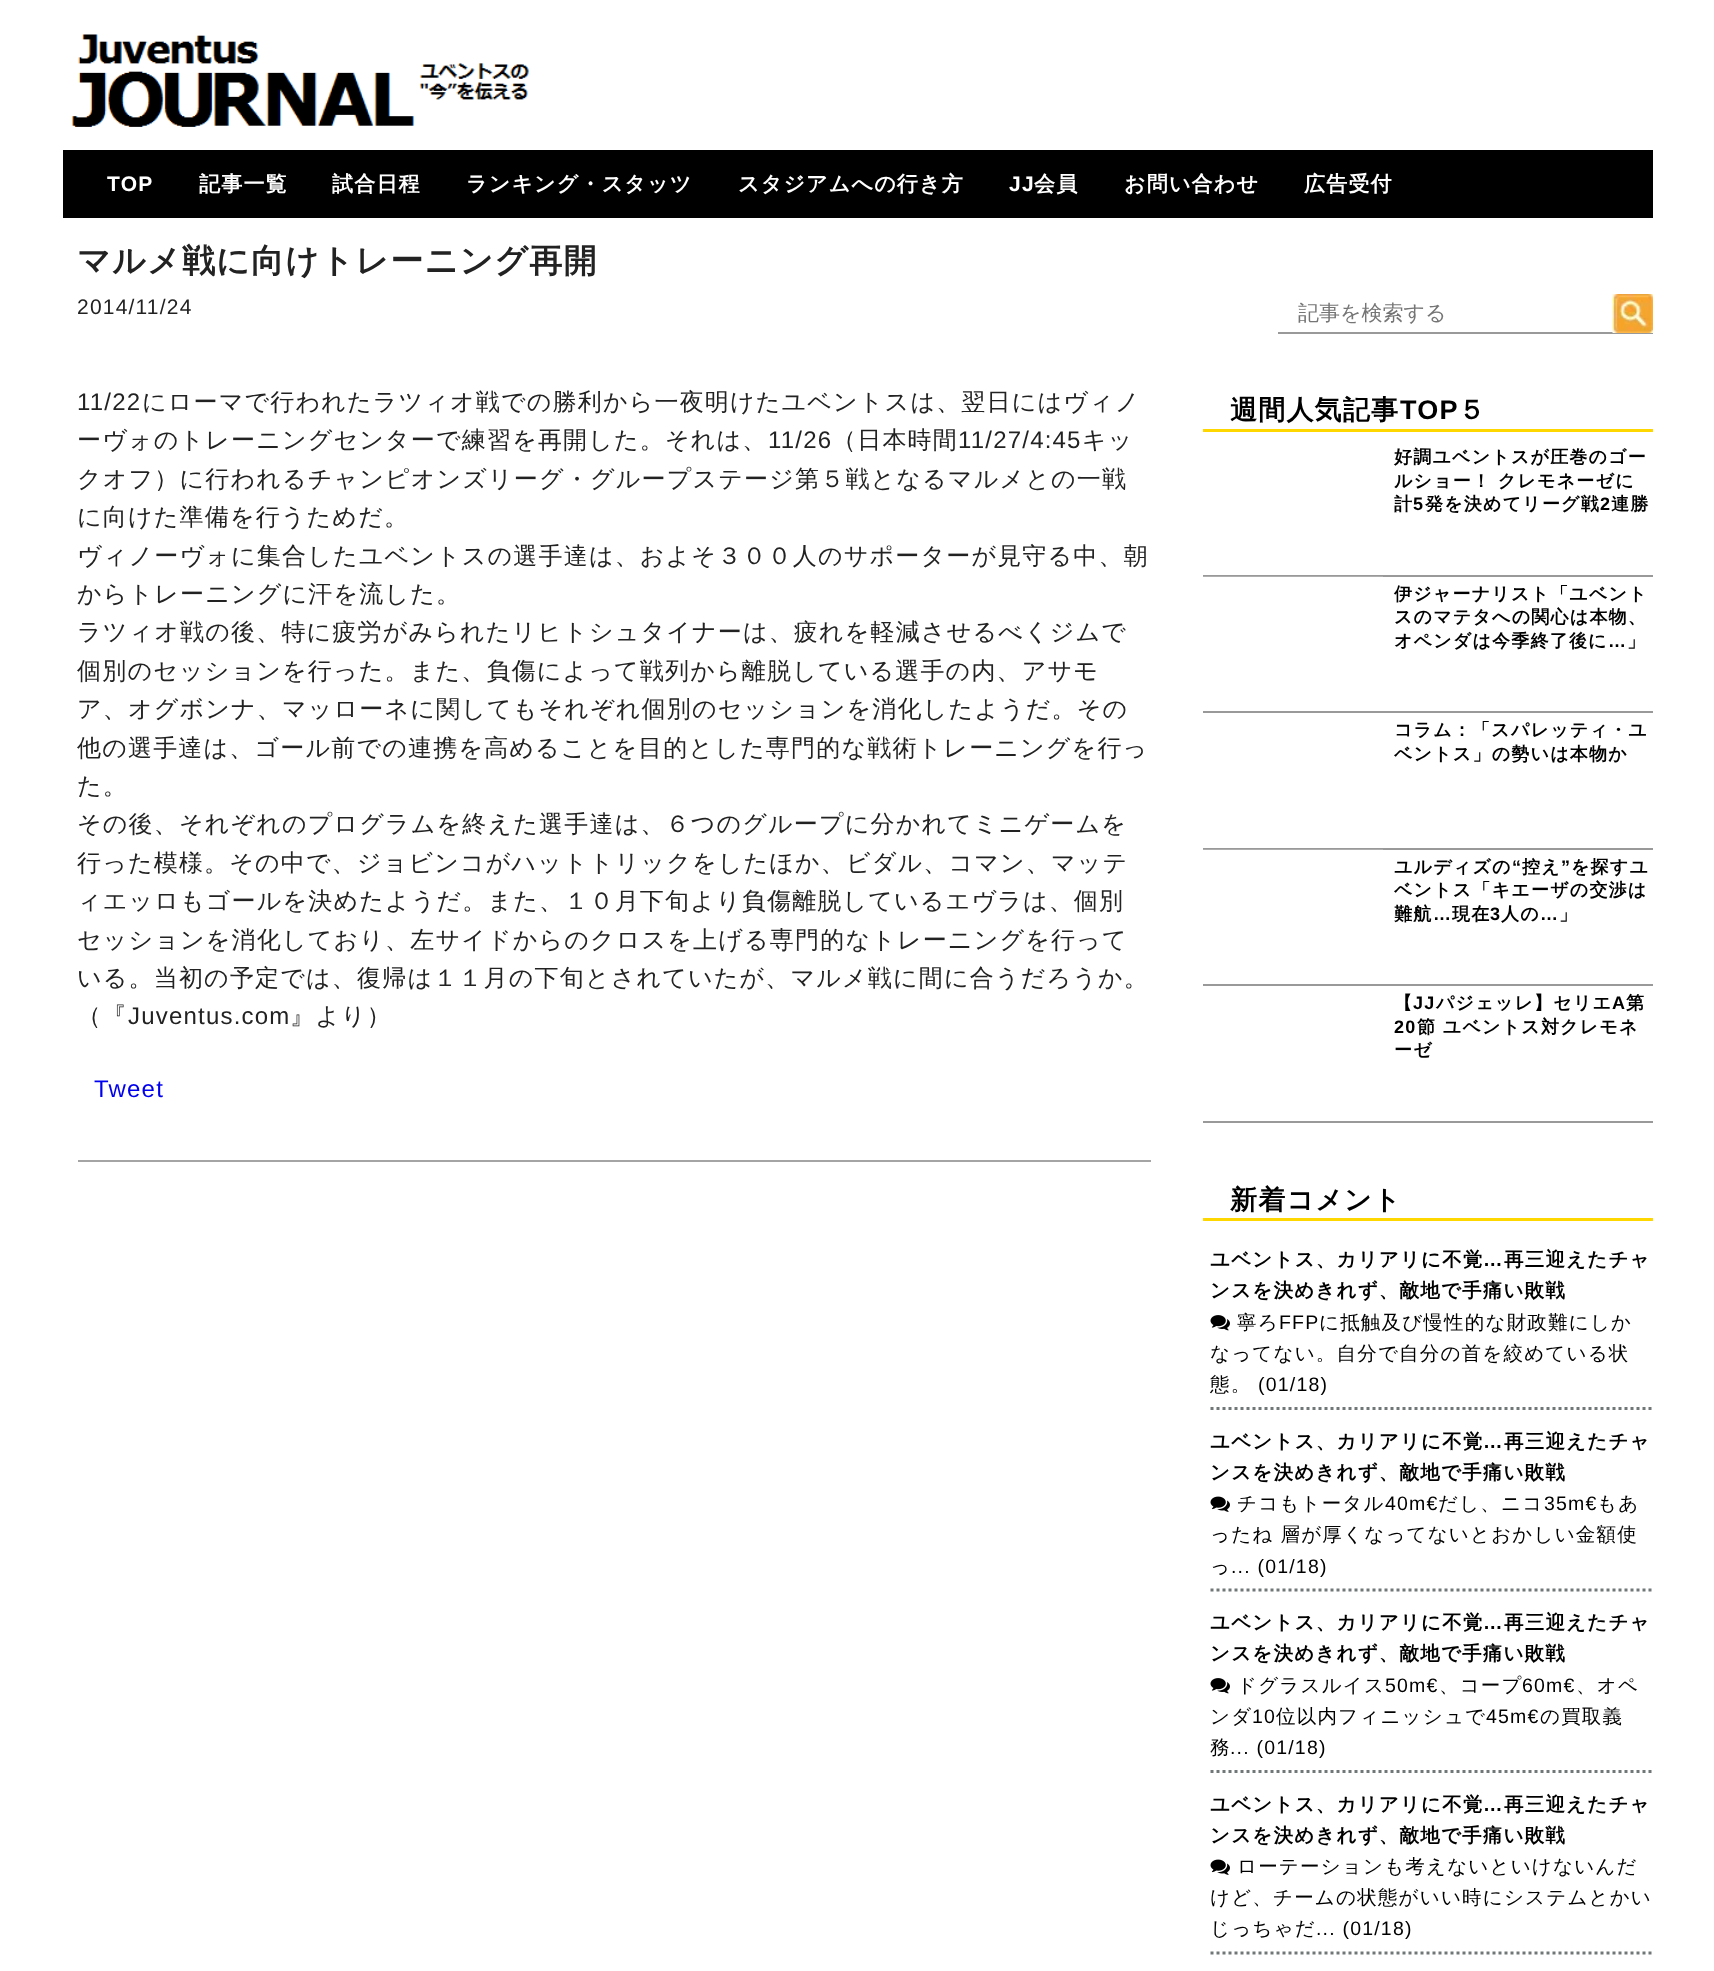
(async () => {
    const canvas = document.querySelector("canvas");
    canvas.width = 1714;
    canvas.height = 1971;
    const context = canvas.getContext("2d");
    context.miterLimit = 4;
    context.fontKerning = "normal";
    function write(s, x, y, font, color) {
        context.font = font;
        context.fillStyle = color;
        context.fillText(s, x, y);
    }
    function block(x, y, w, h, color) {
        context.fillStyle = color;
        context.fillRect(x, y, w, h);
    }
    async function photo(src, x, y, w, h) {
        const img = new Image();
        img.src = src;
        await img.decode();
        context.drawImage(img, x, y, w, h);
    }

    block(0, 0, 1714, 1971, "rgb(255, 255, 255)");
    await photo("media/1.png", 71, 34, 458, 93);
    block(63, 150, 1590, 68, "rgb(0, 0, 0)");
    context.letterSpacing = "1.2px";
    write("TOP", 107, 191, "bold 21px Liberation Sans", "rgb(255, 255, 255)");
    write("記事一覧", 199, 191, "bold 21px WenQuanYi Zen Hei", "rgb(255, 255, 255)");
    write("試合日程", 332, 191, "bold 21px WenQuanYi Zen Hei", "rgb(255, 255, 255)");
    write("ランキング・スタッツ", 466, 191, "bold 21px WenQuanYi Zen Hei", "rgb(255, 255, 255)");
    write("スタジアムへの行き方", 738, 191, "bold 21px WenQuanYi Zen Hei", "rgb(255, 255, 255)");
    write("JJ", 1009, 191, "bold 21px Liberation Sans", "rgb(255, 255, 255)");
    write("会員", 1034, 191, "bold 21px WenQuanYi Zen Hei", "rgb(255, 255, 255)");
    write("お問い合わせ", 1124, 191, "bold 21px WenQuanYi Zen Hei", "rgb(255, 255, 255)");
    write("広告受付", 1304, 191, "bold 21px WenQuanYi Zen Hei", "rgb(255, 255, 255)");
    block(78, 1160, 1073, 2, "rgb(164, 164, 164)");
    write("マルメ戦に向けトレーニング再開", 77, 272, "bold 33px WenQuanYi Zen Hei", "rgb(34, 34, 34)");
    write("2014/11/24", 77, 314, "21px Liberation Sans", "rgb(34, 34, 34)");
    write("11/22", 77, 410, "24px Liberation Sans", "rgb(34, 34, 34)");
    write("にローマで行われたラツィオ戦での勝利から一夜明けたユベントスは、翌日にはヴィノ", 142, 410, "500 24px WenQuanYi Zen Hei", "rgb(34, 34, 34)");
    write("ーヴォのトレーニングセンターで練習を再開した。それは、", 77, 448, "500 24px WenQuanYi Zen Hei", "rgb(34, 34, 34)");
    write("11/26", 768, 448, "24px Liberation Sans", "rgb(34, 34, 34)");
    write("（日本時間", 832, 448, "500 24px WenQuanYi Zen Hei", "rgb(34, 34, 34)");
    write("11/27/4:45", 958, 448, "24px Liberation Sans", "rgb(34, 34, 34)");
    write("キッ", 1082, 448, "500 24px WenQuanYi Zen Hei", "rgb(34, 34, 34)");
    write("クオフ）に行われるチャンピオンズリーグ・グループステージ第５戦となるマルメとの一戦", 77, 487, "500 24px WenQuanYi Zen Hei", "rgb(34, 34, 34)");
    write("に向けた準備を行うためだ。", 77, 525, "500 24px WenQuanYi Zen Hei", "rgb(34, 34, 34)");
    write("ヴィノーヴォに集合したユベントスの選手達は、およそ３００人のサポーターが見守る中、朝", 77, 564, "500 24px WenQuanYi Zen Hei", "rgb(34, 34, 34)");
    write("からトレーニングに汗を流した。", 77, 602, "500 24px WenQuanYi Zen Hei", "rgb(34, 34, 34)");
    write("ラツィオ戦の後、特に疲労がみられたリヒトシュタイナーは、疲れを軽減させるべくジムで", 77, 640, "500 24px WenQuanYi Zen Hei", "rgb(34, 34, 34)");
    write("個別のセッションを行った。また、負傷によって戦列から離脱している選手の内、アサモ", 77, 679, "500 24px WenQuanYi Zen Hei", "rgb(34, 34, 34)");
    write("ア、オグボンナ、マッローネに関してもそれぞれ個別のセッションを消化したようだ。その", 77, 717, "500 24px WenQuanYi Zen Hei", "rgb(34, 34, 34)");
    write("他の選手達は、ゴール前での連携を高めることを目的とした専門的な戦術トレーニングを行っ", 77, 756, "500 24px WenQuanYi Zen Hei", "rgb(34, 34, 34)");
    write("た。", 77, 794, "500 24px WenQuanYi Zen Hei", "rgb(34, 34, 34)");
    write("その後、それぞれのプログラムを終えた選手達は、６つのグループに分かれてミニゲームを", 77, 832, "500 24px WenQuanYi Zen Hei", "rgb(34, 34, 34)");
    write("行った模様。その中で、ジョビンコがハットトリックをしたほか、ビダル、コマン、マッテ", 77, 871, "500 24px WenQuanYi Zen Hei", "rgb(34, 34, 34)");
    write("ィエッロもゴールを決めたようだ。また、１０月下旬より負傷離脱しているエヴラは、個別", 77, 909, "500 24px WenQuanYi Zen Hei", "rgb(34, 34, 34)");
    write("セッションを消化しており、左サイドからのクロスを上げる専門的なトレーニングを行って", 77, 948, "500 24px WenQuanYi Zen Hei", "rgb(34, 34, 34)");
    write("いる。当初の予定では、復帰は１１月の下旬とされていたが、マルメ戦に間に合うだろうか。", 77, 986, "500 24px WenQuanYi Zen Hei", "rgb(34, 34, 34)");
    write("（『", 77, 1024, "500 24px WenQuanYi Zen Hei", "rgb(34, 34, 34)");
    write("Juventus.com", 128, 1024, "24px Liberation Sans", "rgb(34, 34, 34)");
    write("』より）", 290, 1024, "500 24px WenQuanYi Zen Hei", "rgb(34, 34, 34)");
    write("Tweet", 94, 1097, "24px Liberation Sans", "rgb(0, 0, 238)");
    block(1278, 332, 375, 2, "rgb(153, 153, 153)");
    context.letterSpacing = "0px";
    write("記事を検索する", 1298, 320, "500 21px WenQuanYi Zen Hei", "rgb(117, 117, 117)");
    await photo("media/2.png", 1612, 294, 41, 39);
    block(1203, 429, 450, 3, "rgb(255, 215, 0)");
    context.letterSpacing = "1.2px";
    write("週間人気記事", 1230, 419, "bold 27px WenQuanYi Zen Hei", "rgb(0, 0, 0)");
    write("TOP", 1400, 419, "bold 27px Liberation Sans", "rgb(0, 0, 0)");
    write("５", 1458, 419, "bold 27px WenQuanYi Zen Hei", "rgb(0, 0, 0)");
    block(1203, 575, 450, 2, "rgb(153, 153, 153)");
    block(1203, 576, 180, 1, "rgb(173, 173, 173)");
    write("好調ユベントスが圧巻のゴー", 1394, 463, "bold 18px WenQuanYi Zen Hei", "rgb(0, 0, 0)");
    write("ルショー！ クレモネーゼに", 1394, 487, "bold 18px WenQuanYi Zen Hei", "rgb(0, 0, 0)");
    write("計", 1394, 510, "bold 18px WenQuanYi Zen Hei", "rgb(0, 0, 0)");
    write("5", 1413, 510, "bold 18px Liberation Sans", "rgb(0, 0, 0)");
    write("発を決めてリーグ戦", 1425, 510, "bold 18px WenQuanYi Zen Hei", "rgb(0, 0, 0)");
    write("2", 1600, 510, "bold 18px Liberation Sans", "rgb(0, 0, 0)");
    write("連勝", 1611, 510, "bold 18px WenQuanYi Zen Hei", "rgb(0, 0, 0)");
    block(1203, 711, 450, 2, "rgb(153, 153, 153)");
    write("伊ジャーナリスト「ユベント", 1394, 600, "bold 18px WenQuanYi Zen Hei", "rgb(0, 0, 0)");
    write("スのマテタへの関心は本物、", 1394, 623, "bold 18px WenQuanYi Zen Hei", "rgb(0, 0, 0)");
    write("オペンダは今季終了後に", 1394, 647, "bold 18px WenQuanYi Zen Hei", "rgb(0, 0, 0)");
    write("…", 1608, 647, "bold 18px Liberation Sans", "rgb(0, 0, 0)");
    write("」", 1627, 647, "bold 18px WenQuanYi Zen Hei", "rgb(0, 0, 0)");
    block(1203, 848, 450, 2, "rgb(153, 153, 153)");
    block(1203, 849, 180, 1, "rgb(173, 173, 173)");
    write("コラム：「スパレッティ・ユ", 1394, 736, "bold 18px WenQuanYi Zen Hei", "rgb(0, 0, 0)");
    write("ベントス」の勢いは本物か", 1394, 760, "bold 18px WenQuanYi Zen Hei", "rgb(0, 0, 0)");
    block(1203, 984, 450, 2, "rgb(153, 153, 153)");
    write("ユルディズの", 1394, 873, "bold 18px WenQuanYi Zen Hei", "rgb(0, 0, 0)");
    write("“", 1512, 873, "bold 18px Liberation Sans", "rgb(0, 0, 0)");
    write("控え", 1522, 873, "bold 18px WenQuanYi Zen Hei", "rgb(0, 0, 0)");
    write("”", 1561, 873, "bold 18px Liberation Sans", "rgb(0, 0, 0)");
    write("を探すユ", 1571, 873, "bold 18px WenQuanYi Zen Hei", "rgb(0, 0, 0)");
    write("ベントス「キエーザの交渉は", 1394, 896, "bold 18px WenQuanYi Zen Hei", "rgb(0, 0, 0)");
    write("難航", 1394, 920, "bold 18px WenQuanYi Zen Hei", "rgb(0, 0, 0)");
    write("…", 1433, 920, "bold 18px Liberation Sans", "rgb(0, 0, 0)");
    write("現在", 1452, 920, "bold 18px WenQuanYi Zen Hei", "rgb(0, 0, 0)");
    write("3", 1490, 920, "bold 18px Liberation Sans", "rgb(0, 0, 0)");
    write("人の", 1501, 920, "bold 18px WenQuanYi Zen Hei", "rgb(0, 0, 0)");
    write("…", 1540, 920, "bold 18px Liberation Sans", "rgb(0, 0, 0)");
    write("」", 1559, 920, "bold 18px WenQuanYi Zen Hei", "rgb(0, 0, 0)");
    block(1203, 1121, 450, 2, "rgb(153, 153, 153)");
    write("【", 1394, 1009, "bold 18px WenQuanYi Zen Hei", "rgb(0, 0, 0)");
    write("JJ", 1413, 1009, "bold 18px Liberation Sans", "rgb(0, 0, 0)");
    write("パジェッレ】セリエ", 1436, 1009, "bold 18px WenQuanYi Zen Hei", "rgb(0, 0, 0)");
    write("A", 1612, 1009, "bold 18px Liberation Sans", "rgb(0, 0, 0)");
    write("第", 1626, 1009, "bold 18px WenQuanYi Zen Hei", "rgb(0, 0, 0)");
    write("20", 1394, 1033, "bold 18px Liberation Sans", "rgb(0, 0, 0)");
    write("節 ユベントス対クレモネ", 1417, 1033, "bold 18px WenQuanYi Zen Hei", "rgb(0, 0, 0)");
    write("ーゼ", 1394, 1056, "bold 18px WenQuanYi Zen Hei", "rgb(0, 0, 0)");
    block(1203, 1218, 450, 3, "rgb(255, 215, 0)");
    write("新着コメント", 1230, 1209, "bold 27px WenQuanYi Zen Hei", "rgb(0, 0, 0)");
    context.beginPath();
    context.moveTo(1210.5, 1408.5);
    context.lineTo(1653, 1408.5);
    context.strokeStyle = "rgb(113, 119, 119)";
    context.lineWidth = 3;
    context.setLineDash([3, 3]);
    context.stroke();
    write("ユベントス、カリアリに不覚", 1210, 1266, "bold 19.5px WenQuanYi Zen Hei", "rgb(0, 0, 0)");
    write("…", 1483, 1266, "bold 19.5px Liberation Sans", "rgb(0, 0, 0)");
    write("再三迎えたチャ", 1504, 1266, "bold 19.5px WenQuanYi Zen Hei", "rgb(0, 0, 0)");
    write("ンスを決めきれず、敵地で手痛い敗戦", 1210, 1297, "bold 19.5px WenQuanYi Zen Hei", "rgb(0, 0, 0)");
    await photo("media/3.png", 1210, 1315, 20, 16);
    write("寧ろ", 1237, 1329, "500 19.5px WenQuanYi Zen Hei", "rgb(0, 0, 0)");
    write("FFP", 1279, 1329, "19.5px Liberation Sans", "rgb(0, 0, 0)");
    write("に抵触及び慢性的な財政難にしか", 1319, 1329, "500 19.5px WenQuanYi Zen Hei", "rgb(0, 0, 0)");
    write("なってない。自分で自分の首を絞めている状", 1210, 1360, "500 19.5px WenQuanYi Zen Hei", "rgb(0, 0, 0)");
    write("態。", 1210, 1391, "500 19.5px WenQuanYi Zen Hei", "rgb(0, 0, 0)");
    write("(01/18)", 1258, 1391, "19.5px Liberation Sans", "rgb(0, 0, 0)");
    context.beginPath();
    context.moveTo(1210.5, 1590);
    context.lineTo(1653, 1590);
    context.stroke();
    write("ユベントス、カリアリに不覚", 1210, 1448, "bold 19.5px WenQuanYi Zen Hei", "rgb(0, 0, 0)");
    write("…", 1483, 1448, "bold 19.5px Liberation Sans", "rgb(0, 0, 0)");
    write("再三迎えたチャ", 1504, 1448, "bold 19.5px WenQuanYi Zen Hei", "rgb(0, 0, 0)");
    write("ンスを決めきれず、敵地で手痛い敗戦", 1210, 1479, "bold 19.5px WenQuanYi Zen Hei", "rgb(0, 0, 0)");
    await photo("media/4.png", 1210, 1496, 20, 16);
    write("チコもトータル", 1237, 1510, "500 19.5px WenQuanYi Zen Hei", "rgb(0, 0, 0)");
    write("40m€", 1385, 1510, "19.5px Liberation Sans", "rgb(0, 0, 0)");
    write("だし、ニコ", 1438, 1510, "500 19.5px WenQuanYi Zen Hei", "rgb(0, 0, 0)");
    write("35m€", 1544, 1510, "19.5px Liberation Sans", "rgb(0, 0, 0)");
    write("もあ", 1597, 1510, "500 19.5px WenQuanYi Zen Hei", "rgb(0, 0, 0)");
    write("ったね 層が厚くなってないとおかしい金額使", 1210, 1541, "500 19.5px WenQuanYi Zen Hei", "rgb(0, 0, 0)");
    write("っ", 1210, 1573, "500 19.5px WenQuanYi Zen Hei", "rgb(0, 0, 0)");
    write("... (01/18)", 1231, 1573, "19.5px Liberation Sans", "rgb(0, 0, 0)");
    context.beginPath();
    context.moveTo(1210.5, 1771.5);
    context.lineTo(1653, 1771.5);
    context.stroke();
    write("ユベントス、カリアリに不覚", 1210, 1629, "bold 19.5px WenQuanYi Zen Hei", "rgb(0, 0, 0)");
    write("…", 1483, 1629, "bold 19.5px Liberation Sans", "rgb(0, 0, 0)");
    write("再三迎えたチャ", 1504, 1629, "bold 19.5px WenQuanYi Zen Hei", "rgb(0, 0, 0)");
    write("ンスを決めきれず、敵地で手痛い敗戦", 1210, 1660, "bold 19.5px WenQuanYi Zen Hei", "rgb(0, 0, 0)");
    await photo("media/3.png", 1210, 1678, 20, 16);
    write("ドグラスルイス", 1237, 1692, "500 19.5px WenQuanYi Zen Hei", "rgb(0, 0, 0)");
    write("50m€", 1385, 1692, "19.5px Liberation Sans", "rgb(0, 0, 0)");
    write("、コープ", 1439, 1692, "500 19.5px WenQuanYi Zen Hei", "rgb(0, 0, 0)");
    write("60m€", 1522, 1692, "19.5px Liberation Sans", "rgb(0, 0, 0)");
    write("、オペ", 1576, 1692, "500 19.5px WenQuanYi Zen Hei", "rgb(0, 0, 0)");
    write("ンダ", 1210, 1723, "500 19.5px WenQuanYi Zen Hei", "rgb(0, 0, 0)");
    write("10", 1252, 1723, "19.5px Liberation Sans", "rgb(0, 0, 0)");
    write("位以内フィニッシュで", 1276, 1723, "500 19.5px WenQuanYi Zen Hei", "rgb(0, 0, 0)");
    write("45m€", 1486, 1723, "19.5px Liberation Sans", "rgb(0, 0, 0)");
    write("の買取義", 1540, 1723, "500 19.5px WenQuanYi Zen Hei", "rgb(0, 0, 0)");
    write("務", 1210, 1754, "500 19.5px WenQuanYi Zen Hei", "rgb(0, 0, 0)");
    write("... (01/18)", 1230, 1754, "19.5px Liberation Sans", "rgb(0, 0, 0)");
    context.beginPath();
    context.moveTo(1210.5, 1953);
    context.lineTo(1653, 1953);
    context.stroke();
    write("ユベントス、カリアリに不覚", 1210, 1811, "bold 19.5px WenQuanYi Zen Hei", "rgb(0, 0, 0)");
    write("…", 1483, 1811, "bold 19.5px Liberation Sans", "rgb(0, 0, 0)");
    write("再三迎えたチャ", 1504, 1811, "bold 19.5px WenQuanYi Zen Hei", "rgb(0, 0, 0)");
    write("ンスを決めきれず、敵地で手痛い敗戦", 1210, 1842, "bold 19.5px WenQuanYi Zen Hei", "rgb(0, 0, 0)");
    await photo("media/4.png", 1210, 1859, 20, 16);
    write("ローテーションも考えないといけないんだ", 1237, 1873, "500 19.5px WenQuanYi Zen Hei", "rgb(0, 0, 0)");
    write("けど、チームの状態がいい時にシステムとかい", 1210, 1904, "500 19.5px WenQuanYi Zen Hei", "rgb(0, 0, 0)");
    write("じっちゃだ", 1210, 1935, "500 19.5px WenQuanYi Zen Hei", "rgb(0, 0, 0)");
    write("... (01/18)", 1316, 1935, "19.5px Liberation Sans", "rgb(0, 0, 0)");
})();
